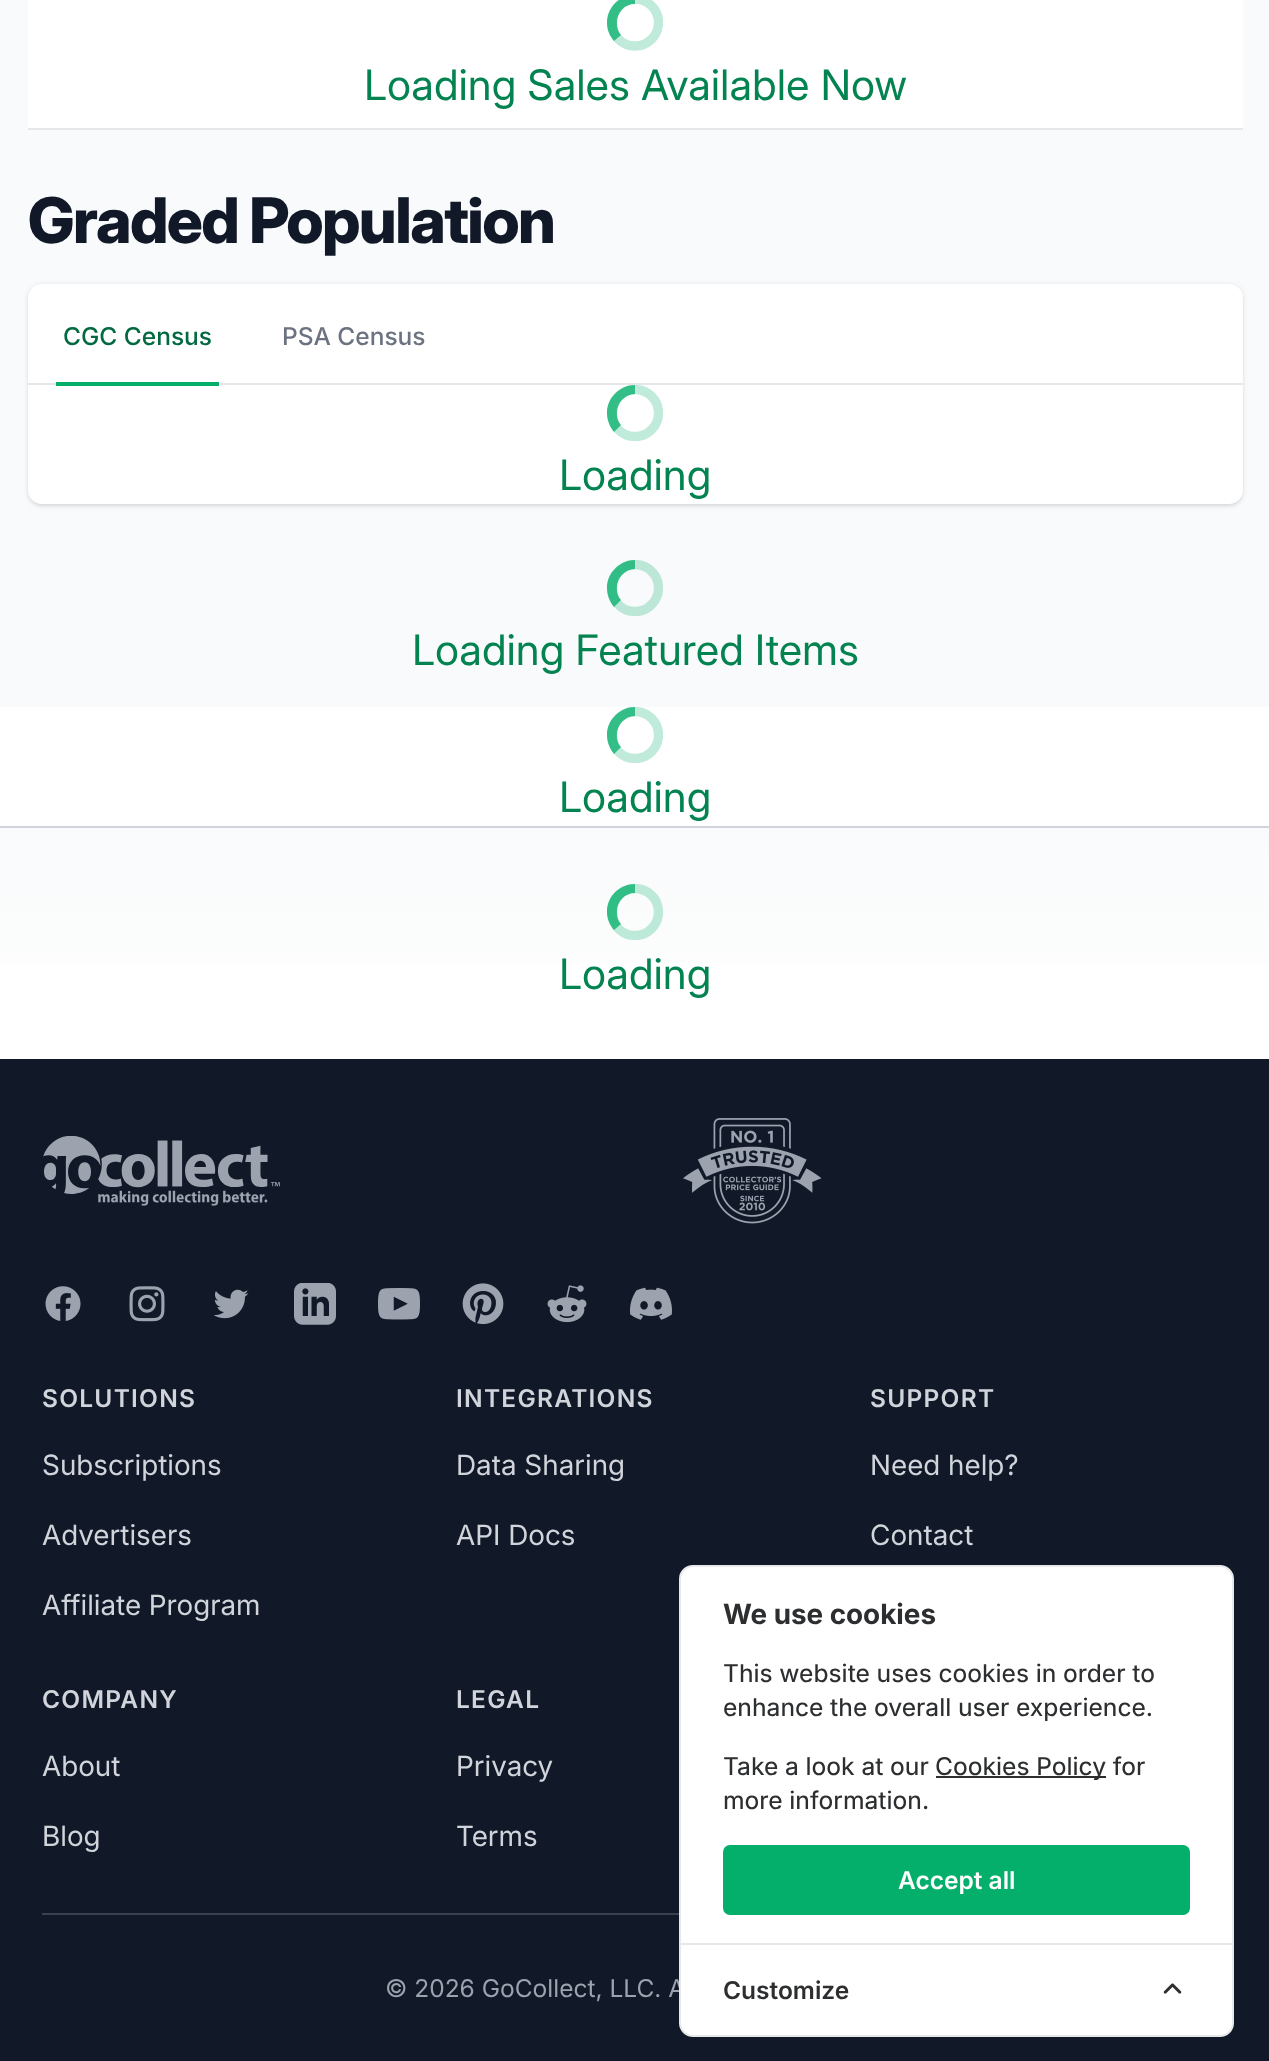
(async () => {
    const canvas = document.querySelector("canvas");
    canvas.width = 1269;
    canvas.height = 2061;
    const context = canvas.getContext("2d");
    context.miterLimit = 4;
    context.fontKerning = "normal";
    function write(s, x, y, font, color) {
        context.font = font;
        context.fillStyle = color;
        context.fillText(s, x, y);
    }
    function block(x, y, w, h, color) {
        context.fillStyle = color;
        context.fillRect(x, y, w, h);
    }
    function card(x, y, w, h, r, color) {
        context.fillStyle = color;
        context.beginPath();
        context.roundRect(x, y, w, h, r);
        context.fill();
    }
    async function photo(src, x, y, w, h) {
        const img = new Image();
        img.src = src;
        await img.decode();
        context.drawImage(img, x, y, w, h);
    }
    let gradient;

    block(0, 0, 1269, 2061, "rgb(255, 255, 255)");
    block(0, 0, 1269, 707, "rgb(249, 250, 251)");
    block(28, 0, 1215, 128, "rgb(255, 255, 255)");
    block(28, 128, 1215, 2, "rgb(229, 231, 235)");
    context.save();
    context.beginPath();
    context.rect(607, 0, 56, 51);
    context.clip();
    context.beginPath();
    context.arc(635, 22.5, 23.5, 0, Math.PI * 2);
    context.strokeStyle = "rgb(192, 235, 218)";
    context.lineWidth = 9.3;
    context.stroke();
    context.restore();
    context.fillStyle = "rgba(3, 175, 106, 0.75)";
    context.beginPath();
    context.moveTo(617, 23);
    context.bezierCurveTo(617, 12, 625, 4, 635, 4);
    context.lineTo(635, -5);
    context.bezierCurveTo(620, -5, 607, 7, 607, 23);
    context.closePath();
    context.moveTo(621, 35);
    context.bezierCurveTo(618, 32, 617, 27, 617, 23);
    context.lineTo(607, 23);
    context.bezierCurveTo(607, 30, 610, 36, 614, 41);
    context.closePath();
    context.fill();
    write("Loading Sales Available Now", 364, 100, "42px Inter", "rgb(2, 131, 80)");
    context.letterSpacing = "-1.6px";
    write("Graded Population", 28, 243, "800 63px Inter", "rgb(17, 24, 39)");
    context.fillStyle = "rgba(0, 0, 0, 0.1)";
    context.filter = "blur(2px)";
    context.beginPath();
    context.roundRect(30, 287, 1211, 217, 12);
    context.fill();
    context.filter = "none";
    context.filter = "blur(2.5px)";
    context.beginPath();
    context.roundRect(28, 285, 1215, 221, 14);
    context.fill();
    context.filter = "none";
    card(28, 284, 1215, 220, 14, "rgb(255, 255, 255)");
    block(28, 383, 1215, 2, "rgb(229, 231, 235)");
    block(56, 382, 163, 4, "rgb(3, 175, 106)");
    context.letterSpacing = "0px";
    write("CGC Census", 63, 345, "500 24.5px Inter", "rgb(2, 105, 64)");
    write("PSA Census", 282, 345, "500 24.5px Inter", "rgb(107, 114, 128)");
    context.save();
    context.beginPath();
    context.rect(607, 385, 56, 56);
    context.clip();
    context.beginPath();
    context.arc(635, 413, 23.5, 0, Math.PI * 2);
    context.strokeStyle = "rgb(192, 235, 218)";
    context.lineWidth = 9.3;
    context.stroke();
    context.restore();
    context.fillStyle = "rgba(3, 175, 106, 0.75)";
    context.beginPath();
    context.moveTo(617, 413);
    context.bezierCurveTo(617, 403, 625, 394, 635, 394);
    context.lineTo(635, 385);
    context.bezierCurveTo(620, 385, 607, 398, 607, 413);
    context.closePath();
    context.moveTo(621, 425);
    context.bezierCurveTo(618, 422, 617, 418, 617, 413);
    context.lineTo(607, 413);
    context.bezierCurveTo(607, 420, 610, 427, 614, 432);
    context.closePath();
    context.fill();
    write("Loading", 559, 490, "42px Inter", "rgb(2, 131, 80)");
    context.save();
    context.beginPath();
    context.rect(607, 560, 56, 56);
    context.clip();
    context.beginPath();
    context.arc(635, 588, 23.5, 0, Math.PI * 2);
    context.strokeStyle = "rgb(188, 231, 215)";
    context.lineWidth = 9.3;
    context.stroke();
    context.restore();
    context.fillStyle = "rgba(3, 175, 106, 0.75)";
    context.beginPath();
    context.moveTo(617, 588);
    context.bezierCurveTo(617, 578, 625, 569, 635, 569);
    context.lineTo(635, 560);
    context.bezierCurveTo(620, 560, 607, 573, 607, 588);
    context.closePath();
    context.moveTo(621, 600);
    context.bezierCurveTo(618, 597, 617, 593, 617, 588);
    context.lineTo(607, 588);
    context.bezierCurveTo(607, 595, 610, 602, 614, 607);
    context.closePath();
    context.fill();
    write("Loading Featured Items", 412, 665, "42px Inter", "rgb(2, 131, 80)");
    context.save();
    context.beginPath();
    context.rect(607, 707, 56, 56);
    context.clip();
    context.beginPath();
    context.arc(635, 735, 23.5, 0, Math.PI * 2);
    context.strokeStyle = "rgb(192, 235, 218)";
    context.lineWidth = 9.3;
    context.stroke();
    context.restore();
    context.fillStyle = "rgba(3, 175, 106, 0.75)";
    context.beginPath();
    context.moveTo(617, 735);
    context.bezierCurveTo(617, 725, 625, 716, 635, 716);
    context.lineTo(635, 707);
    context.bezierCurveTo(620, 707, 607, 720, 607, 735);
    context.closePath();
    context.moveTo(621, 747);
    context.bezierCurveTo(618, 744, 617, 740, 617, 735);
    context.lineTo(607, 735);
    context.bezierCurveTo(607, 742, 610, 749, 614, 754);
    context.closePath();
    context.fill();
    write("Loading", 559, 812, "42px Inter", "rgb(2, 131, 80)");
    gradient = context.createLinearGradient(635, 1059, 635, 828);
    gradient.addColorStop(0, "rgb(255, 255, 255)");
    gradient.addColorStop(1, "rgb(249, 250, 251)");
    context.fillStyle = gradient;
    context.fillRect(0, 828, 1269, 135);
    block(0, 826, 1269, 2, "rgb(209, 213, 219)");
    context.save();
    context.beginPath();
    context.rect(607, 884, 56, 56);
    context.clip();
    context.beginPath();
    context.arc(635, 912, 23.5, 0, Math.PI * 2);
    context.strokeStyle = "rgb(189, 233, 216)";
    context.lineWidth = 9.3;
    context.stroke();
    context.restore();
    context.fillStyle = "rgba(3, 175, 106, 0.75)";
    context.beginPath();
    context.moveTo(617, 912);
    context.bezierCurveTo(617, 901, 625, 893, 635, 893);
    context.lineTo(635, 884);
    context.bezierCurveTo(620, 884, 607, 896, 607, 912);
    context.closePath();
    context.moveTo(621, 924);
    context.bezierCurveTo(618, 921, 617, 916, 617, 912);
    context.lineTo(607, 912);
    context.bezierCurveTo(607, 919, 610, 925, 614, 930);
    context.closePath();
    context.fill();
    write("Loading", 559, 989, "42px Inter", "rgb(2, 131, 80)");
    block(0, 1059, 1269, 1002, "rgb(17, 24, 39)");
    await photo("media/1.png", 43, 1136, 237, 70);
    await photo("media/2.png", 683, 1118, 139, 106);
    await photo("media/3.png", 45, 1286, 36, 35);
    await photo("media/4.png", 129, 1286, 36, 36);
    await photo("media/5.png", 213, 1289, 36, 30);
    await photo("media/6.png", 294, 1283, 42, 42);
    await photo("media/7.png", 378, 1288, 42, 32);
    await photo("media/8.png", 462, 1283, 42, 42);
    await photo("media/9.png", 547, 1285, 40, 38);
    await photo("media/10.png", 630, 1287, 42, 33);
    context.letterSpacing = "1.25px";
    write("SOLUTIONS", 42, 1407, "600 24.5px Inter", "rgb(209, 213, 219)");
    context.letterSpacing = "0px";
    write("Subscriptions", 42, 1475, "28px 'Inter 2'", "rgb(209, 213, 219)");
    write("Advertisers", 42, 1545, "28px 'Inter 2'", "rgb(209, 213, 219)");
    write("Affiliate Program", 42, 1615, "28px 'Inter 2'", "rgb(209, 213, 219)");
    context.letterSpacing = "1.25px";
    write("INTEGRATIONS", 456, 1407, "600 24.5px Inter", "rgb(209, 213, 219)");
    context.letterSpacing = "0px";
    write("Data Sharing", 456, 1475, "28px 'Inter 2'", "rgb(209, 213, 219)");
    write("API Docs", 456, 1545, "28px 'Inter 2'", "rgb(209, 213, 219)");
    context.letterSpacing = "1.25px";
    write("SUPPORT", 870, 1407, "600 24.5px Inter", "rgb(209, 213, 219)");
    context.letterSpacing = "0px";
    write("Need help?", 870, 1475, "28px 'Inter 2'", "rgb(209, 213, 219)");
    write("Contact", 870, 1545, "28px 'Inter 2'", "rgb(209, 213, 219)");
    context.letterSpacing = "1.25px";
    write("COMPANY", 42, 1708, "600 24.5px Inter", "rgb(209, 213, 219)");
    context.letterSpacing = "0px";
    write("About", 42, 1776, "28px 'Inter 2'", "rgb(209, 213, 219)");
    write("Blog", 42, 1846, "28px 'Inter 2'", "rgb(209, 213, 219)");
    context.letterSpacing = "1.25px";
    write("LEGAL", 456, 1708, "600 24.5px Inter", "rgb(209, 213, 219)");
    context.letterSpacing = "0px";
    write("Privacy", 456, 1776, "28px 'Inter 2'", "rgb(209, 213, 219)");
    write("Terms", 456, 1846, "28px 'Inter 2'", "rgb(209, 213, 219)");
    block(42, 1913, 637, 2, "rgb(55, 65, 81)");
    write("© 2026 GoCollect, LLC. A", 385, 1997, "24.5px 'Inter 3'", "rgb(156, 163, 175)");
    context.fillStyle = "rgb(255, 255, 255)";
    context.beginPath();
    context.roundRect(680, 1566, 553, 470, 13);
    context.fill();
    context.strokeStyle = "rgb(231, 232, 233)";
    context.lineWidth = 2;
    context.stroke();
    write("We use cookies", 723, 1624, "bold 28px Inter", "rgb(44, 46, 48)");
    write("This website uses cookies in order to", 723, 1682, "24.5px 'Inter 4'", "rgb(44, 46, 48)");
    write("enhance the overall user experience.", 723, 1716, "24.5px 'Inter 4'", "rgb(44, 46, 48)");
    write("Take a look at our", 723, 1775, "24.5px 'Inter 4'", "rgb(44, 46, 48)");
    block(936, 1776, 170, 2, "rgb(44, 46, 48)");
    write("Cookies Policy for", 935, 1775, "24.5px 'Inter 4'", "rgb(44, 46, 48)");
    write("more information.", 723, 1809, "24.5px 'Inter 4'", "rgb(44, 46, 48)");
    context.fillStyle = "rgb(3, 175, 106)";
    context.beginPath();
    context.roundRect(724, 1846, 465, 68, 6);
    context.fill();
    context.strokeStyle = "rgb(3, 175, 106)";
    context.stroke();
    write("Accept all", 898, 1889, "600 24.5px Inter", "rgb(255, 255, 255)");
    block(681, 1943, 551, 2, "rgb(231, 232, 233)");
    write("Customize", 723, 1999, "600 24.5px Inter", "rgb(44, 46, 48)");
    await photo("media/11.png", 1163, 1983, 19, 11);
})();
